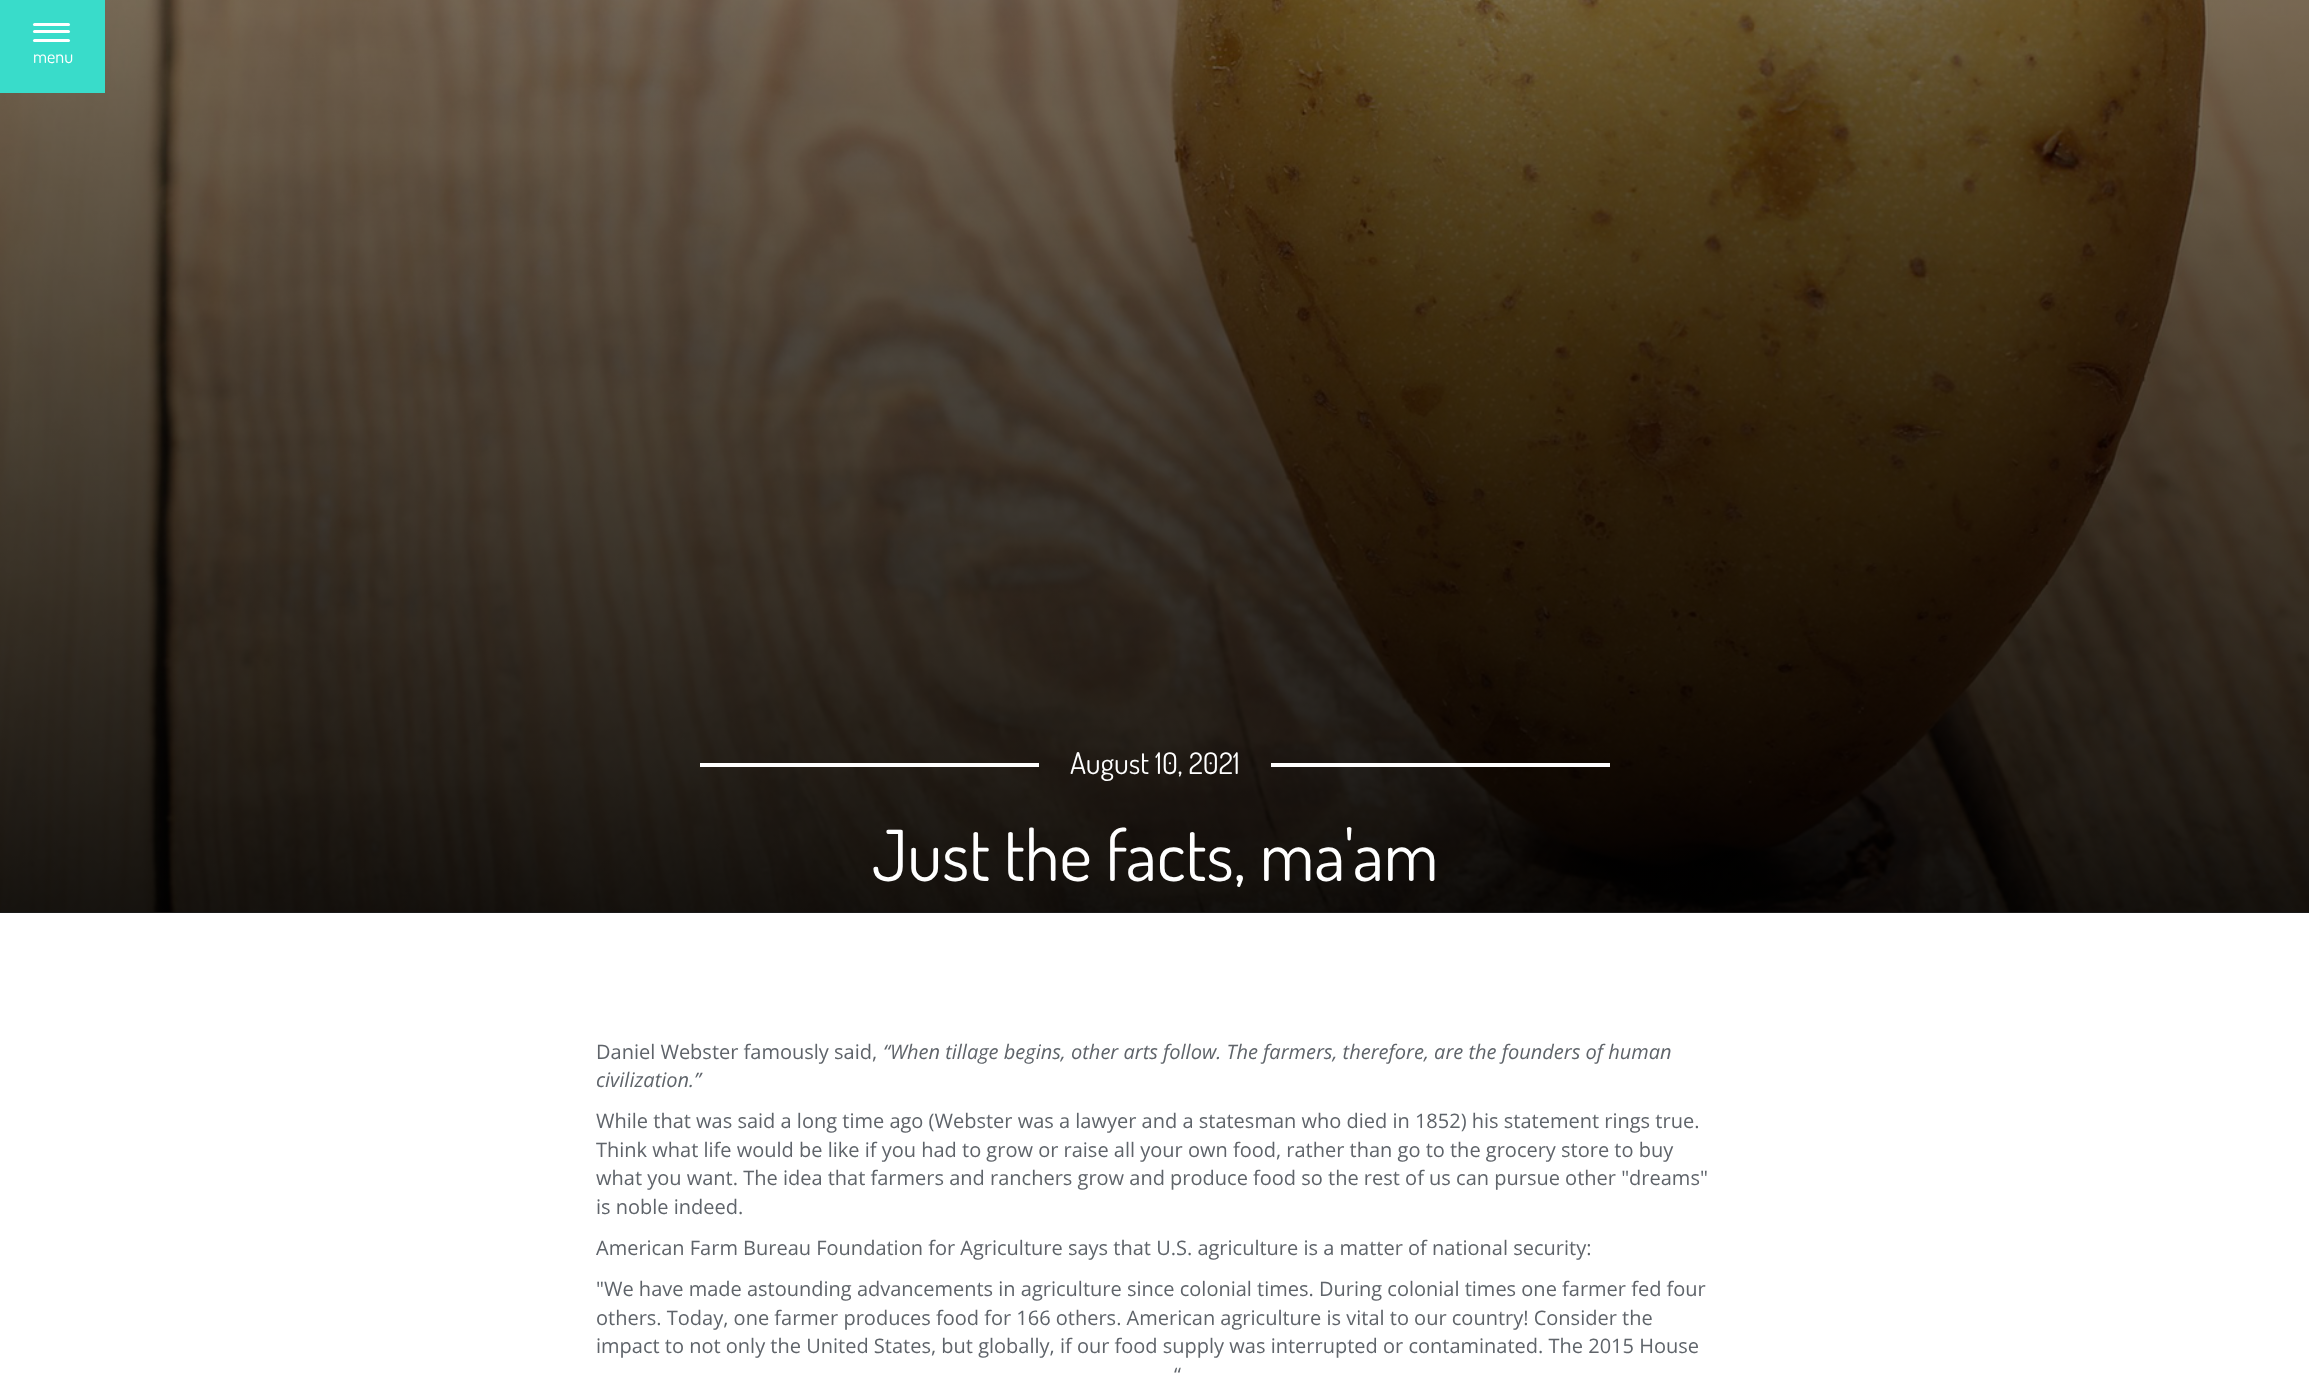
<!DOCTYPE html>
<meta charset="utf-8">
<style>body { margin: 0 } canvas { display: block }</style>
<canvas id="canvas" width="2309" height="1376"></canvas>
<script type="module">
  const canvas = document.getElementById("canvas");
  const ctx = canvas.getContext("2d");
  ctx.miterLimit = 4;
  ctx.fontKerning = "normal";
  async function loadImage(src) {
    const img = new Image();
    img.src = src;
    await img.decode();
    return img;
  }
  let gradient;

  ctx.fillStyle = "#ffffff";
  ctx.fillRect(0, 0, 2309, 1376);
  ctx.drawImage(await loadImage("img1.png"), 0, 0, 2309, 913);
  gradient = ctx.createLinearGradient(1155, 913, 1155, -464);
  gradient.addColorStop(0, "rgba(0, 0, 0, 0.9)");
  gradient.addColorStop(1, "rgba(0, 0, 0, 0.3)");
  ctx.fillStyle = gradient;
  ctx.fillRect(0, 0, 2309, 913);
  ctx.fillStyle = "#39dcca";
  ctx.fillRect(0, 0, 105, 93);
  ctx.fillStyle = "#ffffff";
  ctx.beginPath();
  ctx.roundRect(33, 23, 37, 3, 1.5);
  ctx.fill();
  ctx.beginPath();
  ctx.roundRect(33, 30, 37, 3, 1.5);
  ctx.fill();
  ctx.beginPath();
  ctx.roundRect(33, 39, 37, 3, 1.5);
  ctx.fill();
  ctx.font = "18px Dosis";
  ctx.fillText("menu", 33, 63);
  ctx.fillRect(700, 763, 339, 4);
  ctx.font = "29.75px Dosis";
  ctx.fillText("August 10, 2021", 1070, 774);
  ctx.fillRect(1271, 763, 339, 4);
  ctx.font = "70.25px Dosis";
  ctx.fillText("Just the facts, ma'am", 872, 881);
  ctx.font = "20px Open Sans";
  ctx.fillStyle = "#5f646a";
  ctx.fillText("Daniel Webster famously said,", 596, 1059);
  ctx.font = "italic 20px Open Sans";
  ctx.fillText("“When tillage begins, other arts follow. The farmers, therefore, are the founders of human", 883, 1059);
  ctx.fillText("civilization.”", 596, 1087);
  ctx.font = "20px Open Sans";
  ctx.fillText("While that was said a long time ago (Webster was a lawyer and a statesman who died in 1852) his statement rings true.", 596, 1128);
  ctx.fillText("Think what life would be like if you had to grow or raise all your own food, rather than go to the grocery store to buy", 596, 1157);
  ctx.fillText("what you want. The idea that farmers and ranchers grow and produce food so the rest of us can pursue other \"dreams\"", 596, 1185);
  ctx.fillText("is noble indeed.", 596, 1214);
  ctx.fillText("American Farm Bureau Foundation for Agriculture says that U.S. agriculture is a matter of national security:", 596, 1255);
  ctx.fillText("\"We have made astounding advancements in agriculture since colonial times. During colonial times one farmer fed four", 596, 1296);
  ctx.fillText("others. Today, one farmer produces food for 166 others. American agriculture is vital to our country! Consider the", 596, 1325);
  ctx.fillText("impact to not only the United States, but globally, if our food supply was interrupted or contaminated. The 2015 House", 596, 1353);
  ctx.fillText("“", 1174, 1382);
</script>
